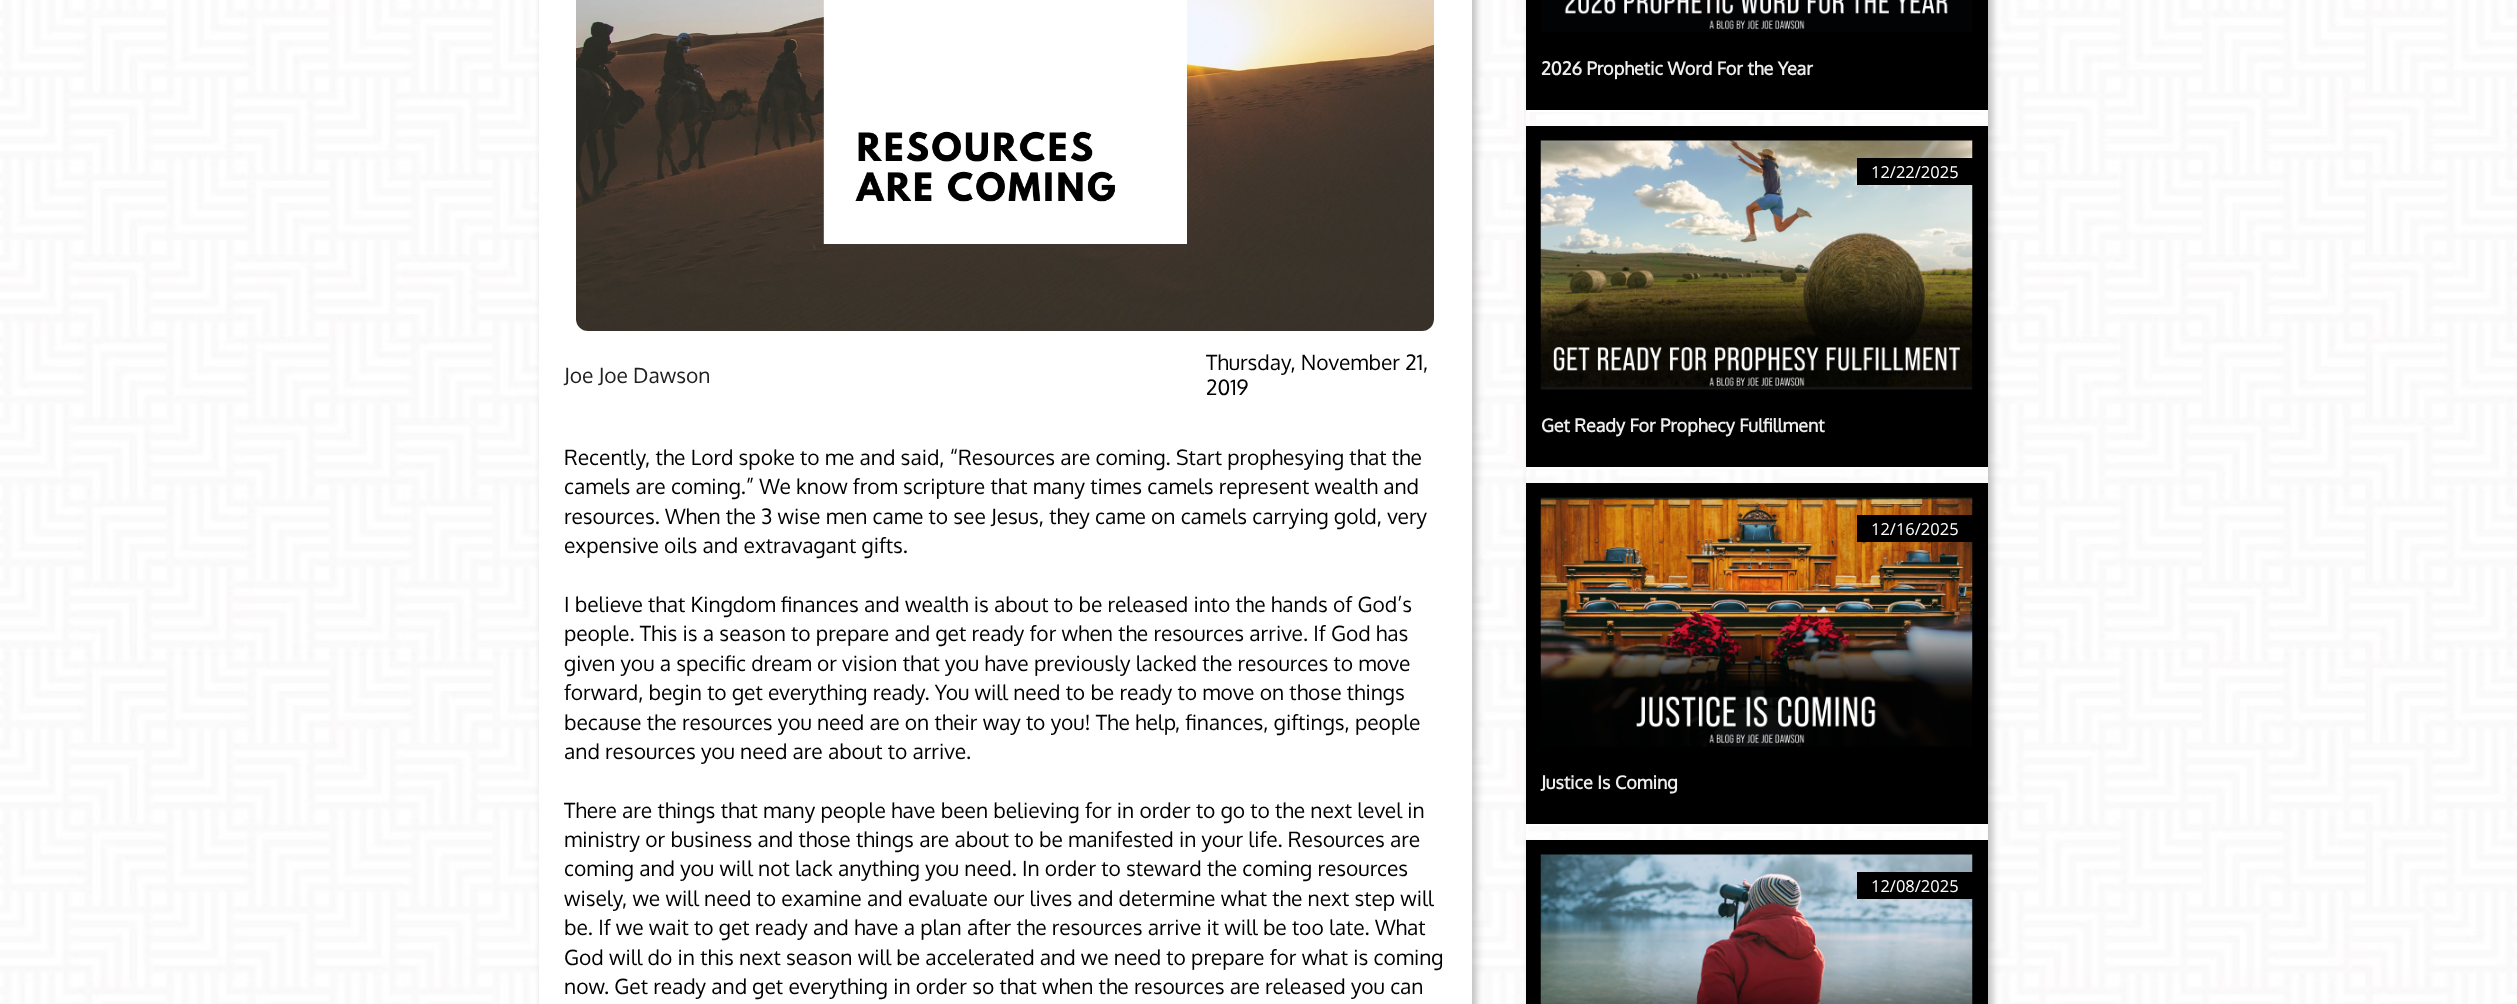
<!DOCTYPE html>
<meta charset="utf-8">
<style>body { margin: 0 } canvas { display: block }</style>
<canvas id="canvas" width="2517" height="1004"></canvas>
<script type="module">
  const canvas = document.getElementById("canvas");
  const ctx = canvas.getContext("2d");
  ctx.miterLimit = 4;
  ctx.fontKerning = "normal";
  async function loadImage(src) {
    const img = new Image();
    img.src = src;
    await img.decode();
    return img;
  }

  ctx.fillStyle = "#ffffff";
  ctx.fillRect(0, 0, 2517, 1004);
  ctx.drawImage(await loadImage("img1.png"), 0, 0, 2517, 1004);
  ctx.fillRect(539, 0, 933, 1004);
  ctx.save();
  ctx.beginPath();
  ctx.moveTo(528, 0);
  ctx.lineTo(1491, 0);
  ctx.lineTo(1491, 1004);
  ctx.lineTo(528, 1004);
  ctx.closePath();
  ctx.moveTo(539, -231);
  ctx.lineTo(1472, -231);
  ctx.lineTo(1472, 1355);
  ctx.lineTo(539, 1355);
  ctx.closePath();
  ctx.clip("evenodd");
  ctx.fillStyle = "rgba(0, 0, 0, 0.25)";
  ctx.filter = "blur(4.5px)";
  ctx.beginPath();
  ctx.rect(543, -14, 933, 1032);
  ctx.fill();
  ctx.filter = "none";
  ctx.restore();
  ctx.drawImage(await loadImage("img2.png"), 576, 0, 858, 331);
  ctx.font = "21px Oxygen";
  ctx.fillStyle = "#212121";
  ctx.fillText("Joe Joe Dawson", 564, 383);
  ctx.fillStyle = "#000000";
  ctx.fillText("Thursday, November 21,", 1206, 370);
  ctx.fillText("2019", 1206, 395);
  ctx.fillText("Recently, the Lord spoke to me and said, “Resources are coming. Start prophesying that the", 564, 465);
  ctx.fillText("camels are coming.” We know from scripture that many times camels represent wealth and", 564, 494);
  ctx.fillText("resources. When the 3 wise men came to see Jesus, they came on camels carrying gold, very", 564, 524);
  ctx.fillText("expensive oils and extravagant gifts.", 564, 553);
  ctx.fillText("I believe that Kingdom finances and wealth is about to be released into the hands of God’s", 564, 612);
  ctx.fillText("people. This is a season to prepare and get ready for when the resources arrive. If God has", 564, 641);
  ctx.fillText("given you a specific dream or vision that you have previously lacked the resources to move", 564, 671);
  ctx.fillText("forward, begin to get everything ready. You will need to be ready to move on those things", 564, 700);
  ctx.fillText("because the resources you need are on their way to you! The help, finances, giftings, people", 564, 730);
  ctx.fillText("and resources you need are about to arrive.", 564, 759);
  ctx.fillText("There are things that many people have been believing for in order to go to the next level in", 564, 818);
  ctx.fillText("ministry or business and those things are about to be manifested in your life. Resources are", 564, 847);
  ctx.fillText("coming and you will not lack anything you need. In order to steward the coming resources", 564, 876);
  ctx.fillText("wisely, we will need to examine and evaluate our lives and determine what the next step will", 564, 906);
  ctx.fillText("be. If we wait to get ready and have a plan after the resources arrive it will be too late. What", 564, 935);
  ctx.fillText("God will do in this next season will be accelerated and we need to prepare for what is coming", 564, 965);
  ctx.fillText("now. Get ready and get everything in order so that when the resources are released you can", 564, 994);
  ctx.save();
  ctx.beginPath();
  ctx.moveTo(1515, 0);
  ctx.lineTo(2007, 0);
  ctx.lineTo(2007, 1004);
  ctx.lineTo(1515, 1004);
  ctx.closePath();
  ctx.moveTo(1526, -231);
  ctx.lineTo(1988, -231);
  ctx.lineTo(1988, 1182);
  ctx.lineTo(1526, 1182);
  ctx.closePath();
  ctx.clip("evenodd");
  ctx.fillStyle = "rgba(0, 0, 0, 0.25)";
  ctx.filter = "blur(4.5px)";
  ctx.beginPath();
  ctx.rect(1530, -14, 462, 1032);
  ctx.fill();
  ctx.filter = "none";
  ctx.restore();
  ctx.fillRect(1526, 0, 462, 110);
  ctx.fillStyle = "#ffffff";
  ctx.fillRect(1526, 110, 462, 2);
  ctx.drawImage(await loadImage("img3.png"), 1541, 0, 431, 32);
  ctx.font = "bold 18px Oxygen";
  ctx.fillStyle = "#eeeeee";
  ctx.fillText("2026 Prophetic Word For the Year", 1541, 75);
  ctx.fillStyle = "#000000";
  ctx.fillRect(1526, 126, 462, 341);
  ctx.fillStyle = "#ffffff";
  ctx.fillRect(1526, 467, 462, 2);
  ctx.drawImage(await loadImage("img4.png"), 1540, 140, 433, 250);
  ctx.fillStyle = "#000000";
  ctx.fillRect(1857, 158, 116, 27);
  ctx.font = "16.5px Open Sans";
  ctx.fillStyle = "#ffffff";
  ctx.fillText("12/22/2025", 1871, 178);
  ctx.font = "bold 18px Oxygen";
  ctx.fillStyle = "#eeeeee";
  ctx.fillText("Get Ready For Prophecy Fulfillment", 1541, 432);
  ctx.fillStyle = "#000000";
  ctx.fillRect(1526, 483, 462, 341);
  ctx.fillStyle = "#ffffff";
  ctx.fillRect(1526, 824, 462, 2);
  ctx.drawImage(await loadImage("img5.png"), 1540, 497, 433, 250);
  ctx.fillStyle = "#000000";
  ctx.fillRect(1857, 515, 116, 27);
  ctx.font = "16.5px Open Sans";
  ctx.fillStyle = "#ffffff";
  ctx.fillText("12/16/2025", 1871, 535);
  ctx.font = "bold 18px Oxygen";
  ctx.fillStyle = "#eeeeee";
  ctx.fillText("Justice Is Coming", 1541, 789);
  ctx.fillStyle = "#000000";
  ctx.fillRect(1526, 840, 462, 164);
  ctx.drawImage(await loadImage("img6.png"), 1540, 854, 433, 150);
  ctx.fillRect(1857, 872, 116, 27);
  ctx.font = "16.5px Open Sans";
  ctx.fillStyle = "#ffffff";
  ctx.fillText("12/08/2025", 1871, 892);
</script>
